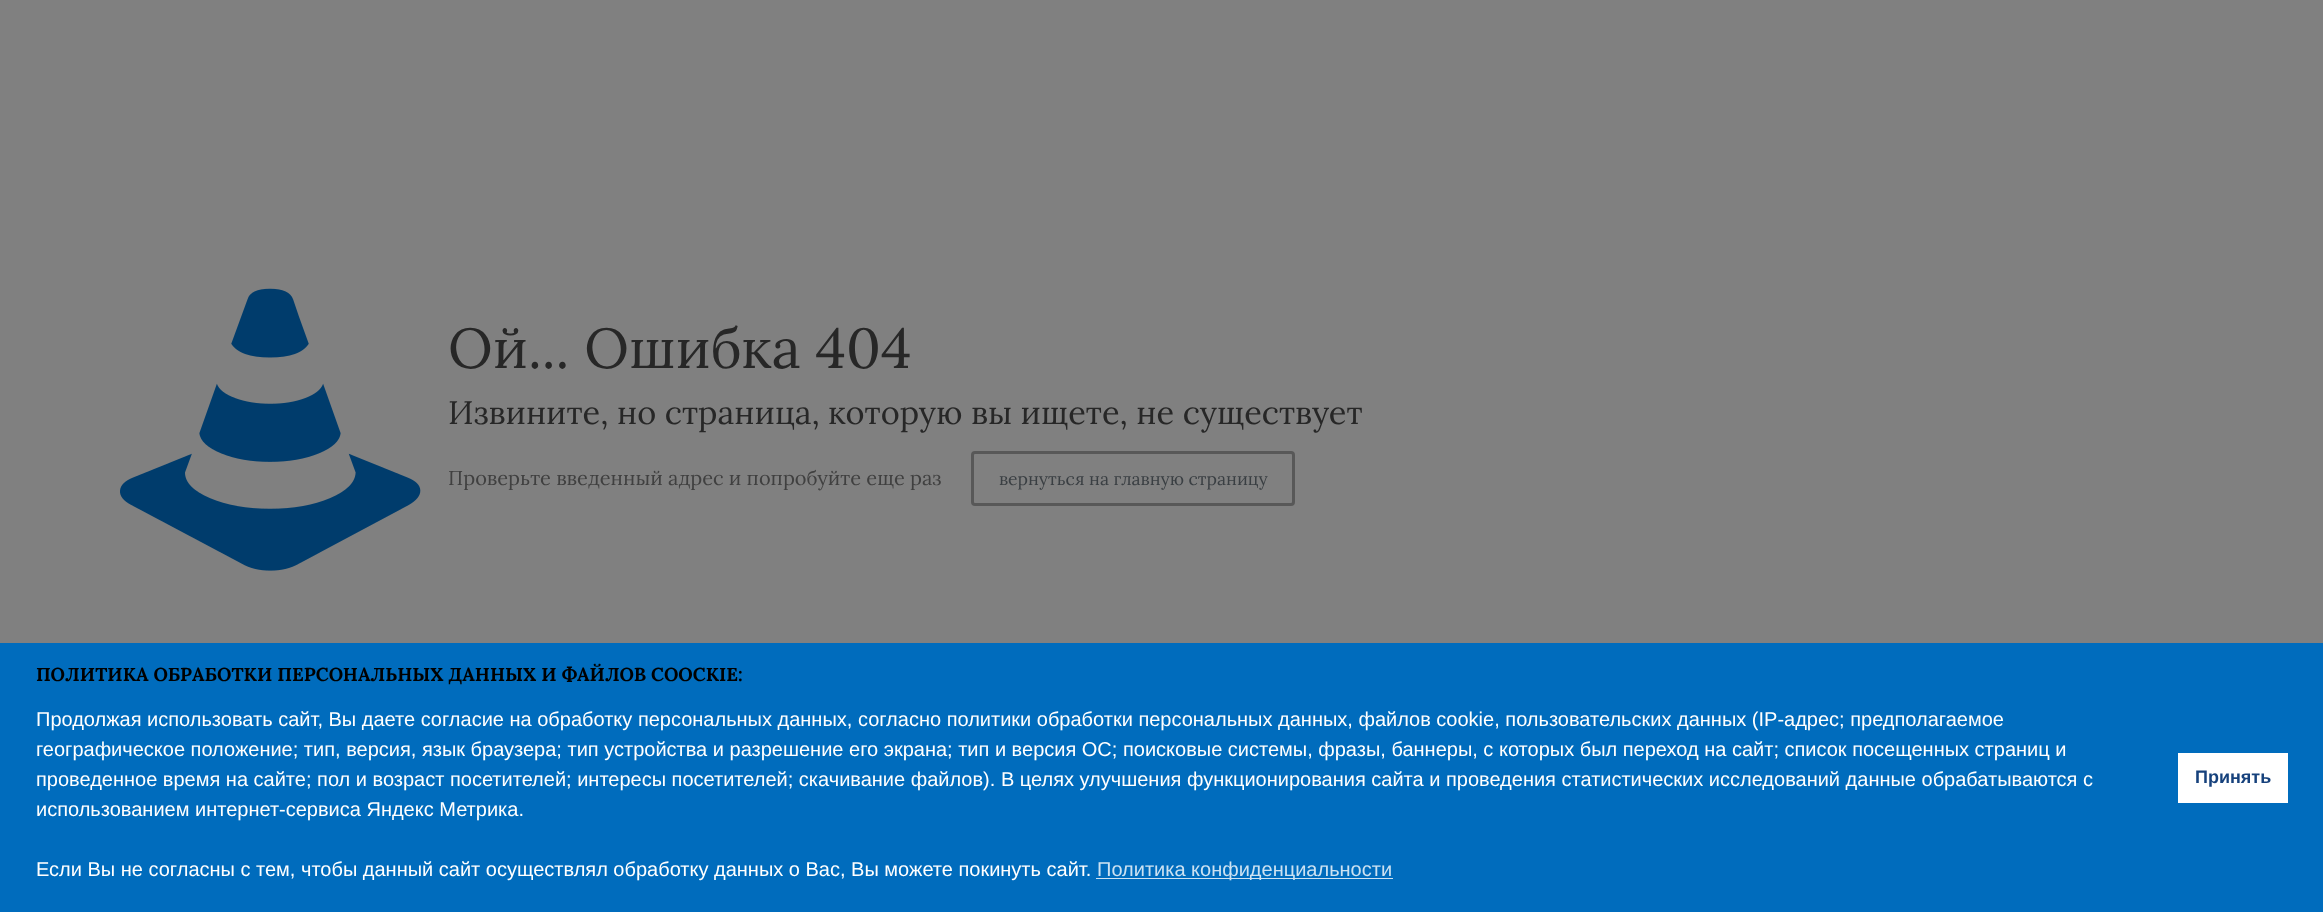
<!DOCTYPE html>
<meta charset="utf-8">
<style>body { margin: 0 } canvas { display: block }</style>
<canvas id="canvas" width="2323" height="912"></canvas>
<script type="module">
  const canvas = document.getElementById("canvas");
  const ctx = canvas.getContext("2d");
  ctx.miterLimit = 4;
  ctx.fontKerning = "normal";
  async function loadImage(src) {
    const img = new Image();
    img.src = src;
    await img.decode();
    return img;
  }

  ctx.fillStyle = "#808080";
  ctx.fillRect(0, 0, 2323, 912);
  ctx.drawImage(await loadImage("img1.png"), 120, 288, 301, 283);
  ctx.font = "56.25px Lora";
  ctx.fillStyle = "#272727";
  ctx.fillText("Ой... Ошибка 404", 448, 368);
  ctx.font = "32.5px Lora";
  ctx.fillText("Извините, но страница, которую вы ищете, не существует", 448, 424);
  ctx.font = "20px Lora";
  ctx.fillStyle = "#404040";
  ctx.fillText("Проверьте введенный адрес и попробуйте еще раз", 448, 485);
  ctx.beginPath();
  ctx.roundRect(972.5, 452.5, 321, 52, 2.5);
  ctx.strokeStyle = "#585858";
  ctx.lineWidth = 3;
  ctx.stroke();
  ctx.font = "17.5px Lora";
  ctx.fillStyle = "#3a3f43";
  ctx.fillText("вернуться на главную страницу", 999, 485);
  ctx.fillStyle = "#006cbd";
  ctx.fillRect(0, 643, 2323, 269);
  ctx.font = "bold 18.75px Lora";
  ctx.fillStyle = "#000000";
  ctx.fillText("ПОЛИТИКА ОБРАБОТКИ ПЕРСОНАЛЬНЫХ ДАННЫХ И ФАЙЛОВ COOCKIE:", 36, 681);
  ctx.font = "20px Liberation Sans";
  ctx.fillStyle = "#ffffff";
  ctx.fillText("Продолжая использовать сайт, Вы даете согласие на обработку персональных данных, согласно политики обработки персональных данных, файлов cookie, пользовательских данных (IP-адрес; предполагаемое", 36, 726);
  ctx.fillText("географическое положение; тип, версия, язык браузера; тип устройства и разрешение его экрана; тип и версия ОС; поисковые системы, фразы, баннеры, с которых был переход на сайт; список посещенных страниц и", 36, 756);
  ctx.fillText("проведенное время на сайте; пол и возраст посетителей; интересы посетителей; скачивание файлов). В целях улучшения функционирования сайта и проведения статистических исследований данные обрабатываются с", 36, 786);
  ctx.fillText("использованием интернет-сервиса Яндекс Метрика.", 36, 816);
  ctx.fillText("Если Вы не согласны с тем, чтобы данный сайт осуществлял обработку данных о Вас, Вы можете покинуть сайт.", 36, 876);
  ctx.fillStyle = "#cce2f2";
  ctx.fillRect(1096, 878, 297, 1);
  ctx.fillText("Политика конфиденциальности", 1097, 876);
  ctx.fillStyle = "#ffffff";
  ctx.fillRect(2178, 753, 110, 50);
  ctx.font = "bold 18px Liberation Sans";
  ctx.fillStyle = "#16417c";
  ctx.fillText("Принять", 2195, 783);
</script>
